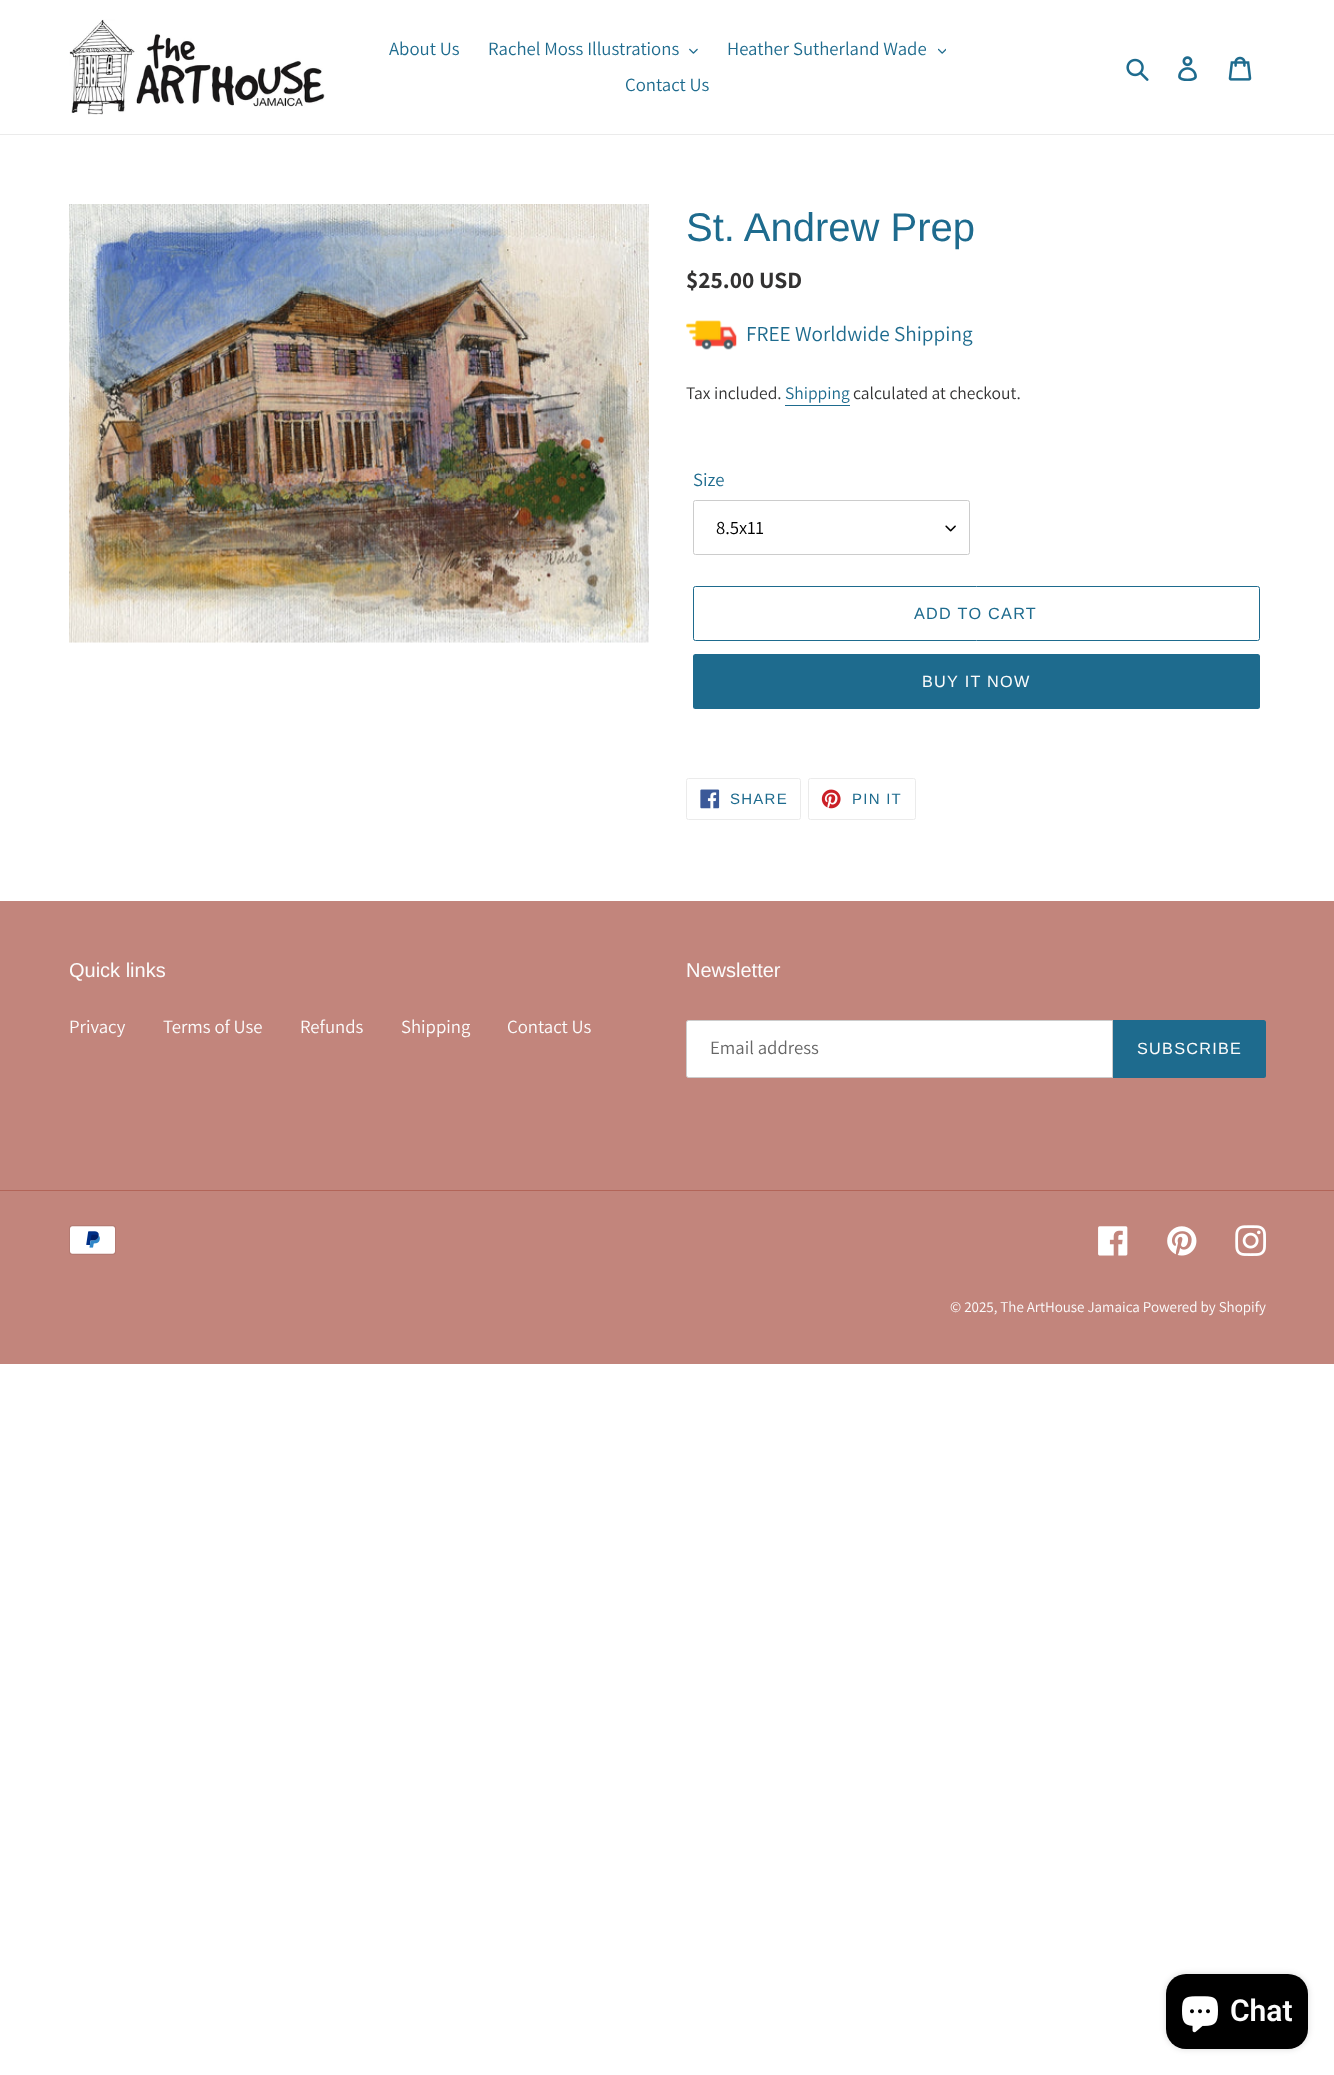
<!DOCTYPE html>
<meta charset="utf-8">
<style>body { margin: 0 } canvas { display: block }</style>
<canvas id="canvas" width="1334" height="2075"></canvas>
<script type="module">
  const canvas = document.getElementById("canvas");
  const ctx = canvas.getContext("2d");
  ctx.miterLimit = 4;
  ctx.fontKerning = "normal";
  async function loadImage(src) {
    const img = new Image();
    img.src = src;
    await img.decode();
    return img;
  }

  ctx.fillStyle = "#ffffff";
  ctx.fillRect(0, 0, 1334, 2075);
  ctx.fillStyle = "#ebebeb";
  ctx.fillRect(0, 134, 1334, 1);
  ctx.drawImage(await loadImage("img1.png"), 69, 19, 256, 96);
  ctx.font = "18.75px Assistant";
  ctx.fillStyle = "#1e6b8e";
  ctx.fillText("About Us", 389, 55);
  ctx.fillText("Rachel Moss Illustrations", 488, 55);
  ctx.drawImage(await loadImage("img2.png"), 689, 48, 9, 6);
  ctx.fillText("Heather Sutherland Wade", 727, 55);
  ctx.drawImage(await loadImage("img3.png"), 938, 48, 8, 6);
  ctx.fillText("Contact Us", 625, 91);
  ctx.drawImage(await loadImage("img4.png"), 1126, 58, 23, 23);
  ctx.drawImage(await loadImage("img5.png"), 1178, 56, 19, 25);
  ctx.drawImage(await loadImage("img6.png"), 1228, 56, 24, 25);
  ctx.drawImage(await loadImage("img7.png"), 69, 204, 580, 439);
  ctx.font = "40px Liberation Sans";
  ctx.fillText("St. Andrew Prep", 686, 241);
  ctx.font = "bold 23.5px Assistant";
  ctx.fillStyle = "#333232";
  ctx.fillText("$25.00 USD", 686, 288);
  ctx.drawImage(await loadImage("img8.png"), 686, 320, 51, 30);
  ctx.font = "21.25px Assistant";
  ctx.fillStyle = "#1e6b8e";
  ctx.fillText("FREE Worldwide Shipping", 746, 341);
  ctx.font = "17.5px Assistant";
  ctx.fillStyle = "#333232";
  ctx.fillText("Tax included.", 686, 399);
  ctx.fillStyle = "#1e6b8e";
  ctx.fillText("Shipping", 785, 399);
  ctx.fillRect(785, 405, 65, 1);
  ctx.fillStyle = "#333232";
  ctx.fillText("calculated at checkout.", 853, 399);
  ctx.font = "18.75px Assistant";
  ctx.fillStyle = "#1e6b8e";
  ctx.fillText("Size", 693, 486);
  ctx.drawImage(await loadImage("img9.png"), 945, 525, 11, 7);
  ctx.beginPath();
  ctx.roundRect(693.5, 500.5, 276, 54, 2);
  ctx.strokeStyle = "#cccccc";
  ctx.stroke();
  ctx.fillStyle = "#000000";
  ctx.fillText("8.5x11", 716, 534);
  ctx.beginPath();
  ctx.roundRect(693.5, 586.5, 566, 54, 2);
  ctx.strokeStyle = "#1e6b8e";
  ctx.stroke();
  ctx.letterSpacing = "1.25px";
  ctx.font = "16.25px Liberation Sans";
  ctx.fillStyle = "#1e6b8e";
  ctx.fillText("ADD TO CART", 914, 619);
  ctx.beginPath();
  ctx.roundRect(693, 654, 567, 55, 2.5);
  ctx.fill();
  ctx.fillStyle = "#fcfcfc";
  ctx.fillText("BUY IT NOW", 922, 687);
  ctx.beginPath();
  ctx.roundRect(686.5, 778.5, 114, 41, 2);
  ctx.strokeStyle = "#ebebeb";
  ctx.stroke();
  ctx.drawImage(await loadImage("img10.png"), 700, 789, 20, 20);
  ctx.font = "15px Liberation Sans";
  ctx.fillStyle = "#1e6b8e";
  ctx.fillText("SHARE", 730, 804);
  ctx.beginPath();
  ctx.roundRect(808.5, 778.5, 107, 41, 2);
  ctx.stroke();
  ctx.drawImage(await loadImage("img11.png"), 821, 789, 20, 20);
  ctx.fillText("PIN IT", 852, 804);
  ctx.fillStyle = "#c2857c";
  ctx.fillRect(0, 901, 1334, 463);
  ctx.letterSpacing = "0px";
  ctx.font = "20px Liberation Sans";
  ctx.fillStyle = "#fcfcfc";
  ctx.fillText("Quick links", 69, 977);
  ctx.font = "18.75px Assistant";
  ctx.fillText("Privacy", 69, 1033);
  ctx.fillText("Terms of Use", 163, 1033);
  ctx.fillText("Refunds", 300, 1033);
  ctx.fillText("Shipping", 401, 1033);
  ctx.fillText("Contact Us", 507, 1033);
  ctx.font = "20px Liberation Sans";
  ctx.fillText("Newsletter", 686, 977);
  ctx.fillStyle = "#ffffff";
  ctx.beginPath();
  ctx.roundRect(686.5, 1020.5, 426, 57, [2, 0, 0, 2]);
  ctx.fill();
  ctx.strokeStyle = "#cccccc";
  ctx.stroke();
  ctx.font = "18.75px Assistant";
  ctx.fillStyle = "#666666";
  ctx.fillText("Email address", 710, 1054);
  ctx.fillStyle = "#1e6b8e";
  ctx.beginPath();
  ctx.roundRect(1113, 1020, 153, 58, [0, 2.5, 2.5, 0]);
  ctx.fill();
  ctx.letterSpacing = "1.25px";
  ctx.font = "16.25px Liberation Sans";
  ctx.fillStyle = "#fcfcfc";
  ctx.fillText("SUBSCRIBE", 1137, 1054);
  ctx.fillStyle = "#b26559";
  ctx.fillRect(0, 1190, 1334, 1);
  ctx.drawImage(await loadImage("img12.png"), 69, 1225, 47, 30);
  ctx.drawImage(await loadImage("img13.png"), 1098, 1226, 30, 30);
  ctx.drawImage(await loadImage("img14.png"), 1167, 1226, 30, 30);
  ctx.drawImage(await loadImage("img15.png"), 1235, 1225, 31, 31);
  ctx.letterSpacing = "0px";
  ctx.font = "15px Assistant";
  ctx.fillStyle = "#fcfcfc";
  ctx.fillText("© 2025, The ArtHouse Jamaica Powered by Shopify", 950, 1312);
  ctx.fillStyle = "rgba(0, 0, 0, 0.15)";
  ctx.filter = "blur(3px)";
  ctx.beginPath();
  ctx.roundRect(1166, 1974, 142, 75, 20);
  ctx.fill();
  ctx.filter = "none";
  ctx.fillStyle = "#000000";
  ctx.beginPath();
  ctx.roundRect(1166, 1974, 142, 75, 20);
  ctx.fill();
  ctx.drawImage(await loadImage("img16.png"), 1182, 1996, 36, 37);
  ctx.font = "600 30px Roboto";
  ctx.fillStyle = "#fcfcfc";
  ctx.fillText("Chat", 1230, 2021);
</script>
